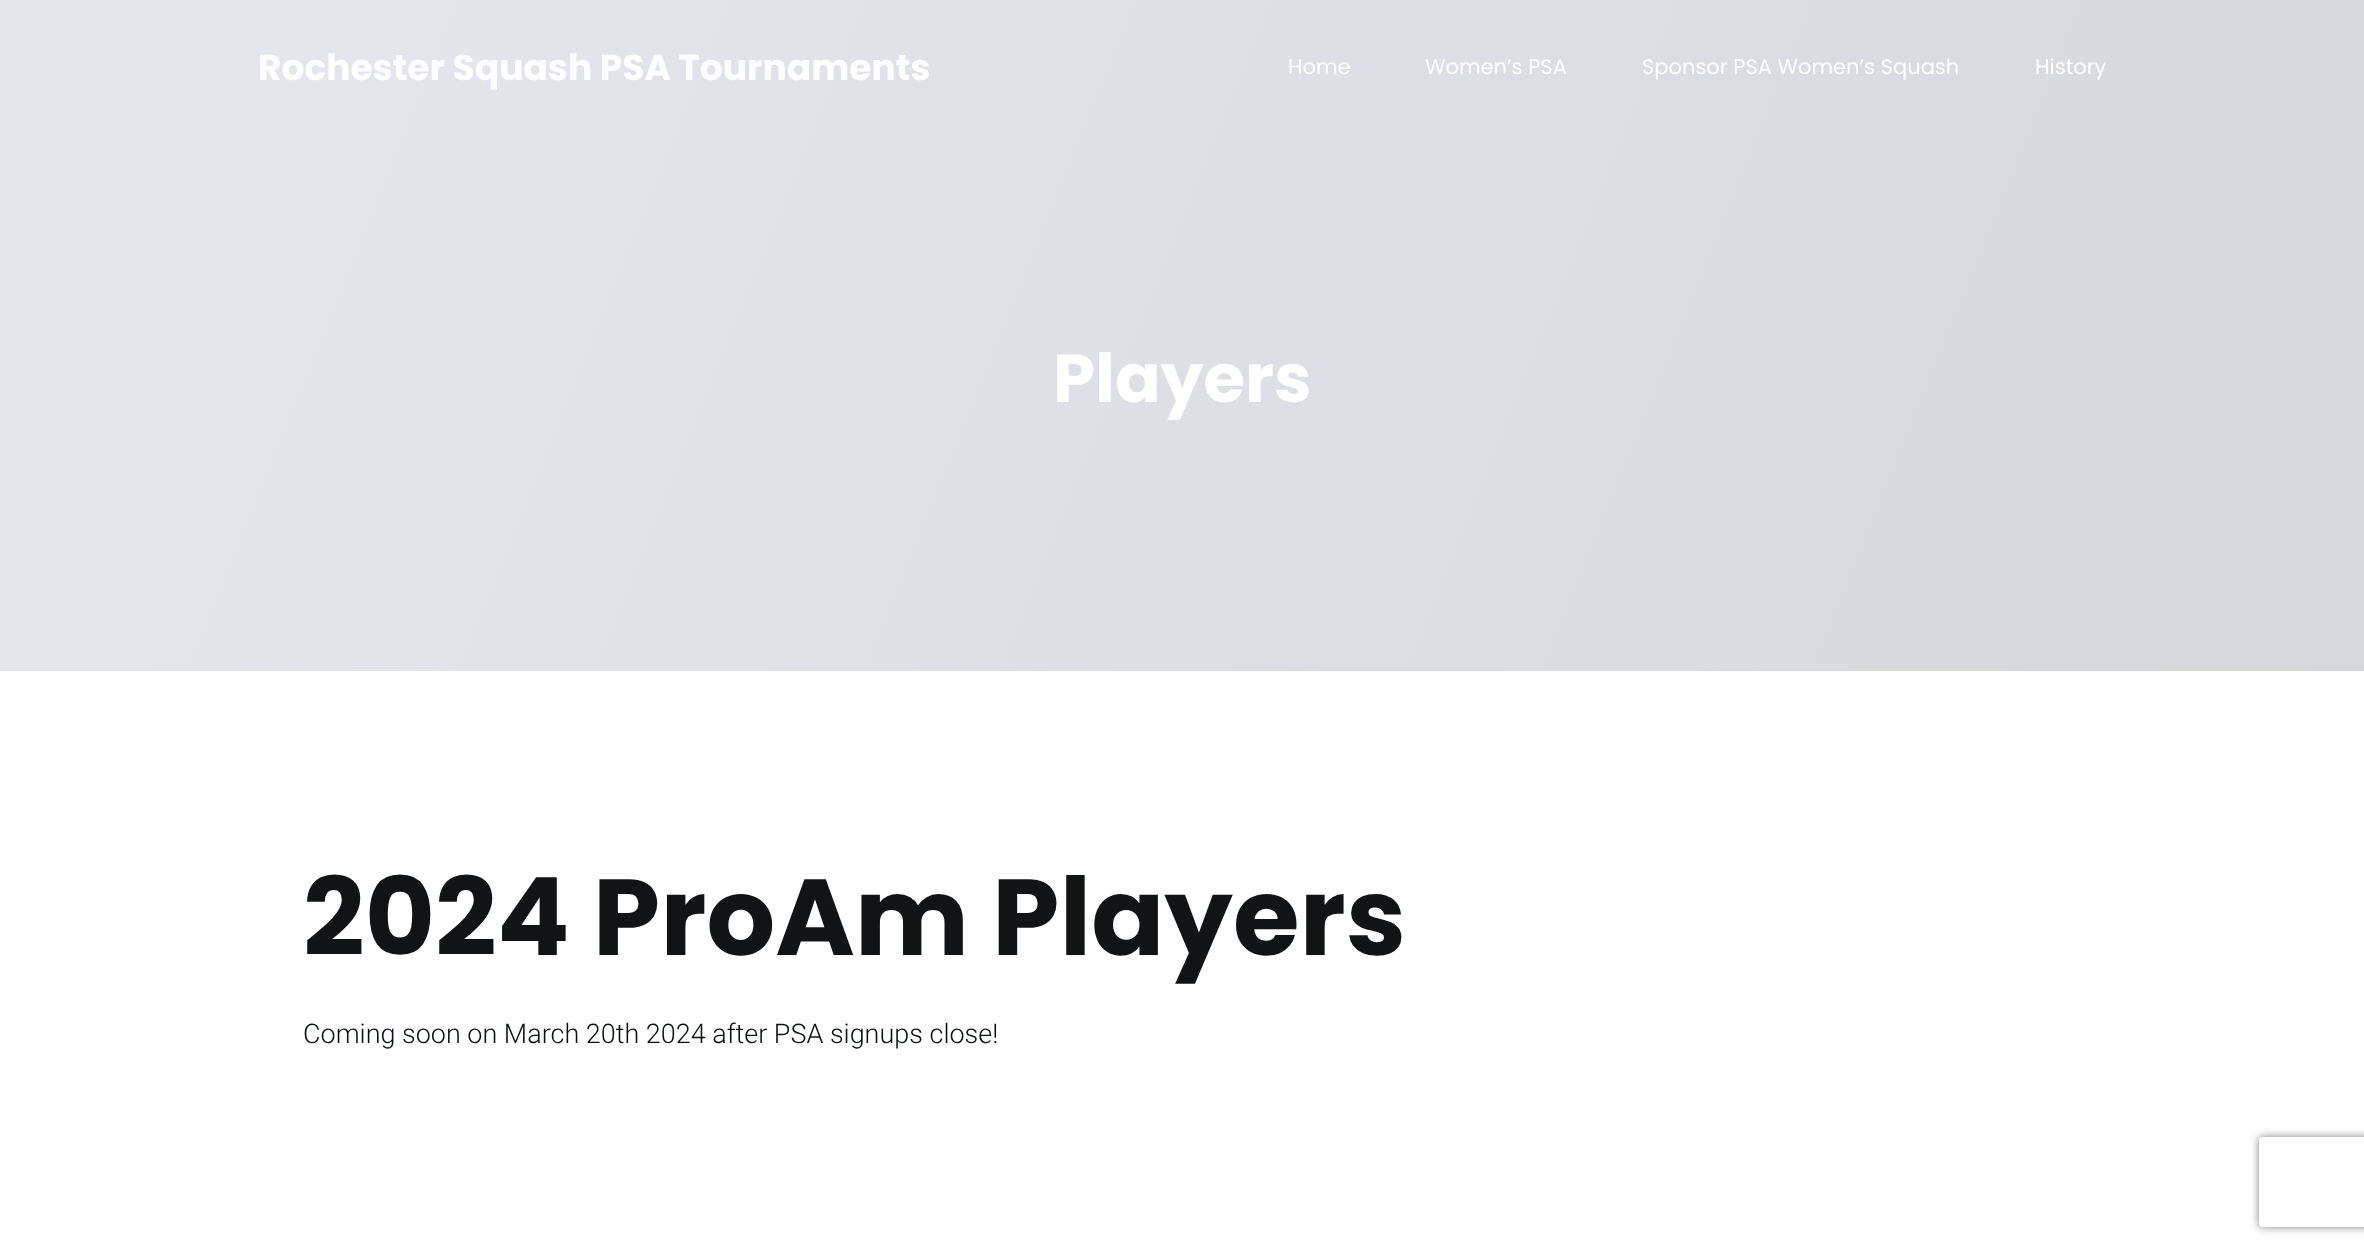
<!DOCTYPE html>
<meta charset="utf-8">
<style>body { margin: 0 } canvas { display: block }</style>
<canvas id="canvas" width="2364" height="1248"></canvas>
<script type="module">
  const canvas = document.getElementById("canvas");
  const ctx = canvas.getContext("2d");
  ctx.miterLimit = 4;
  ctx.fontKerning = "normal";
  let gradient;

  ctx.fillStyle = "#ffffff";
  ctx.fillRect(0, 0, 2364, 1248);
  gradient = ctx.createLinearGradient(49, -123, 2315, 793);
  gradient.addColorStop(0.12, "#e5e5ed");
  gradient.addColorStop(1, "#d6d6dd");
  ctx.fillStyle = gradient;
  ctx.fillRect(0, 0, 2364, 671);
  ctx.font = "bold 36px Poppins";
  ctx.fillStyle = "#ffffff";
  ctx.fillText("Rochester Squash PSA Tournaments", 258, 80);
  ctx.font = "21px Poppins";
  ctx.fillText("Home", 1288, 74);
  ctx.fillText("Women’s PSA", 1425, 74);
  ctx.fillText("Sponsor PSA Women’s Squash", 1642, 74);
  ctx.fillText("History", 2035, 74);
  ctx.font = "bold 67.5px Poppins";
  ctx.fillText("Players", 1053, 402);
  ctx.font = "bold 108px Poppins";
  ctx.fillStyle = "#121315";
  ctx.fillText("2024 ProAm Players", 303, 955);
  ctx.font = "300 27px Roboto";
  ctx.fillStyle = "#0a0e14";
  ctx.fillText("Coming soon on March 20th 2024 after PSA signups close!", 303, 1043);
  ctx.save();
  ctx.beginPath();
  ctx.moveTo(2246, 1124);
  ctx.lineTo(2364, 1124);
  ctx.lineTo(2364, 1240);
  ctx.lineTo(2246, 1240);
  ctx.closePath();
  ctx.moveTo(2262, 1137);
  ctx.lineTo(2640, 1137);
  ctx.bezierCurveTo(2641.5, 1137, 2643, 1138.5, 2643, 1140);
  ctx.lineTo(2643, 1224);
  ctx.bezierCurveTo(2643, 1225.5, 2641.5, 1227, 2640, 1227);
  ctx.lineTo(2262, 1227);
  ctx.bezierCurveTo(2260.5, 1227, 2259, 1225.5, 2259, 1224);
  ctx.lineTo(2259, 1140);
  ctx.bezierCurveTo(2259, 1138.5, 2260.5, 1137, 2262, 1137);
  ctx.closePath();
  ctx.clip("evenodd");
  ctx.fillStyle = "#808080";
  ctx.filter = "blur(4px)";
  ctx.beginPath();
  ctx.roundRect(2259, 1137, 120, 90, 3);
  ctx.fill();
  ctx.filter = "none";
  ctx.restore();
</script>
